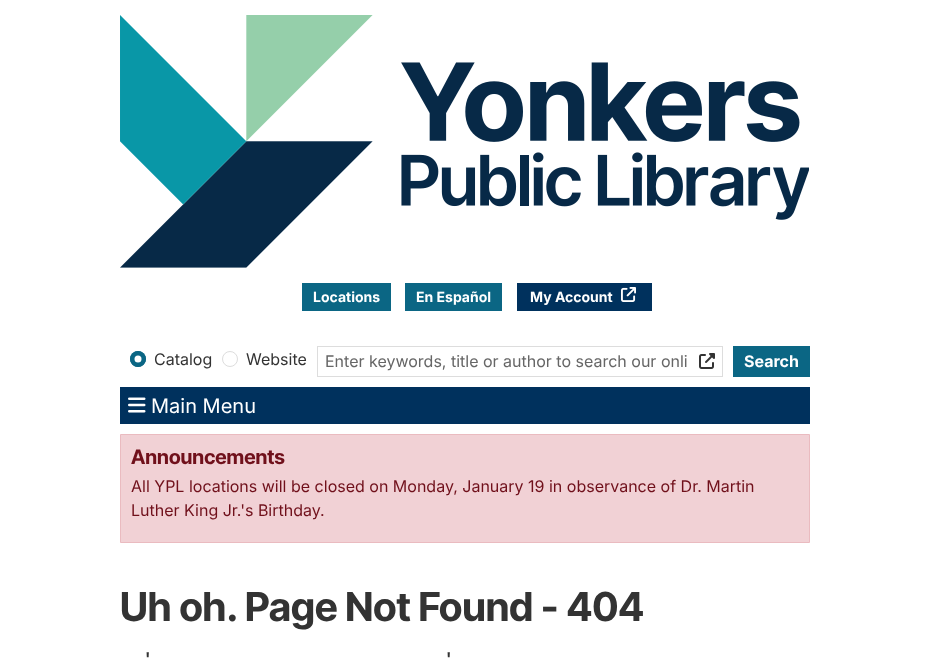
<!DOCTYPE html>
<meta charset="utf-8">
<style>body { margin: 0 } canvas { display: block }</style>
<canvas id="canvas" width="929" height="658"></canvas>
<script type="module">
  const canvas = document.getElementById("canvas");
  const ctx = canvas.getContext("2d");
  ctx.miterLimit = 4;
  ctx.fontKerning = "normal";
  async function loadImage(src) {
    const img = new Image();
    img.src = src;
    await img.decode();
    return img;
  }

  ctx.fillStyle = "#ffffff";
  ctx.fillRect(0, 0, 929, 658);
  ctx.drawImage(await loadImage("img1.png"), 120, 15, 689, 253);
  ctx.fillStyle = "#0b6684";
  ctx.fillRect(302, 283, 89, 28);
  ctx.font = "bold 14px Inter";
  ctx.fillStyle = "#ffffff";
  ctx.fillText("Locations", 313, 302);
  ctx.fillStyle = "#0b6684";
  ctx.fillRect(405, 283, 97, 28);
  ctx.fillStyle = "#ffffff";
  ctx.fillText("En Español", 416, 302);
  ctx.fillStyle = "#00315d";
  ctx.fillRect(517, 283, 135, 28);
  ctx.fillStyle = "#ffffff";
  ctx.fillText("My Account", 530, 302);
  ctx.drawImage(await loadImage("img2.png"), 621, 287, 15, 15);
  ctx.fillStyle = "#0b6684";
  ctx.beginPath();
  ctx.arc(138, 359, 8, 0, Math.PI * 2);
  ctx.fill();
  ctx.fillStyle = "#ffffff";
  ctx.beginPath();
  ctx.arc(138, 359, 3.5, 0, Math.PI * 2);
  ctx.fill();
  ctx.beginPath();
  ctx.arc(138, 359, 7.5, 0, Math.PI * 2);
  ctx.strokeStyle = "#0b6684";
  ctx.stroke();
  ctx.font = "16px Inter";
  ctx.fillStyle = "#333333";
  ctx.fillText("Catalog", 154, 365);
  ctx.beginPath();
  ctx.arc(230, 359, 7.5, 0, Math.PI * 2);
  ctx.strokeStyle = "#dddddd";
  ctx.stroke();
  ctx.fillText("Website", 246, 365);
  ctx.strokeRect(317.5, 346.5, 405, 30);
  ctx.fillStyle = "#666666";
  ctx.fillText("Enter keywords, title or author to search our onli", 325, 367);
  ctx.drawImage(await loadImage("img3.png"), 699, 353, 16, 16);
  ctx.fillStyle = "#0b6684";
  ctx.fillRect(733, 346, 77, 31);
  ctx.font = "bold 16px Inter";
  ctx.fillStyle = "#ffffff";
  ctx.fillText("Search", 744, 367);
  ctx.fillStyle = "#00315d";
  ctx.fillRect(120, 387, 690, 37);
  ctx.drawImage(await loadImage("img4.png"), 128, 397, 18, 16);
  ctx.font = "20px Inter";
  ctx.fillStyle = "#ffffff";
  ctx.fillText("Main Menu", 151, 413);
  ctx.fillStyle = "#f1d1d5";
  ctx.beginPath();
  ctx.rect(120.5, 434.5, 689, 108);
  ctx.fill();
  ctx.strokeStyle = "#eabbc0";
  ctx.stroke();
  ctx.font = "bold 20px Inter Tight";
  ctx.fillStyle = "#70101b";
  ctx.fillText("Announcements", 131, 464);
  ctx.font = "16px Inter";
  ctx.fillText("All YPL locations will be closed on Monday, January 19 in observance of Dr. Martin", 131, 492);
  ctx.fillText("Luther King Jr.'s Birthday.", 131, 516);
  ctx.font = "bold 39.9px Inter Tight";
  ctx.fillStyle = "#333333";
  ctx.fillText("Uh oh. Page Not Found - 404", 120, 621);
  ctx.font = "bold 16px Inter";
  ctx.fillText("'", 145, 664);
  ctx.fillText("'", 446, 664);
</script>
